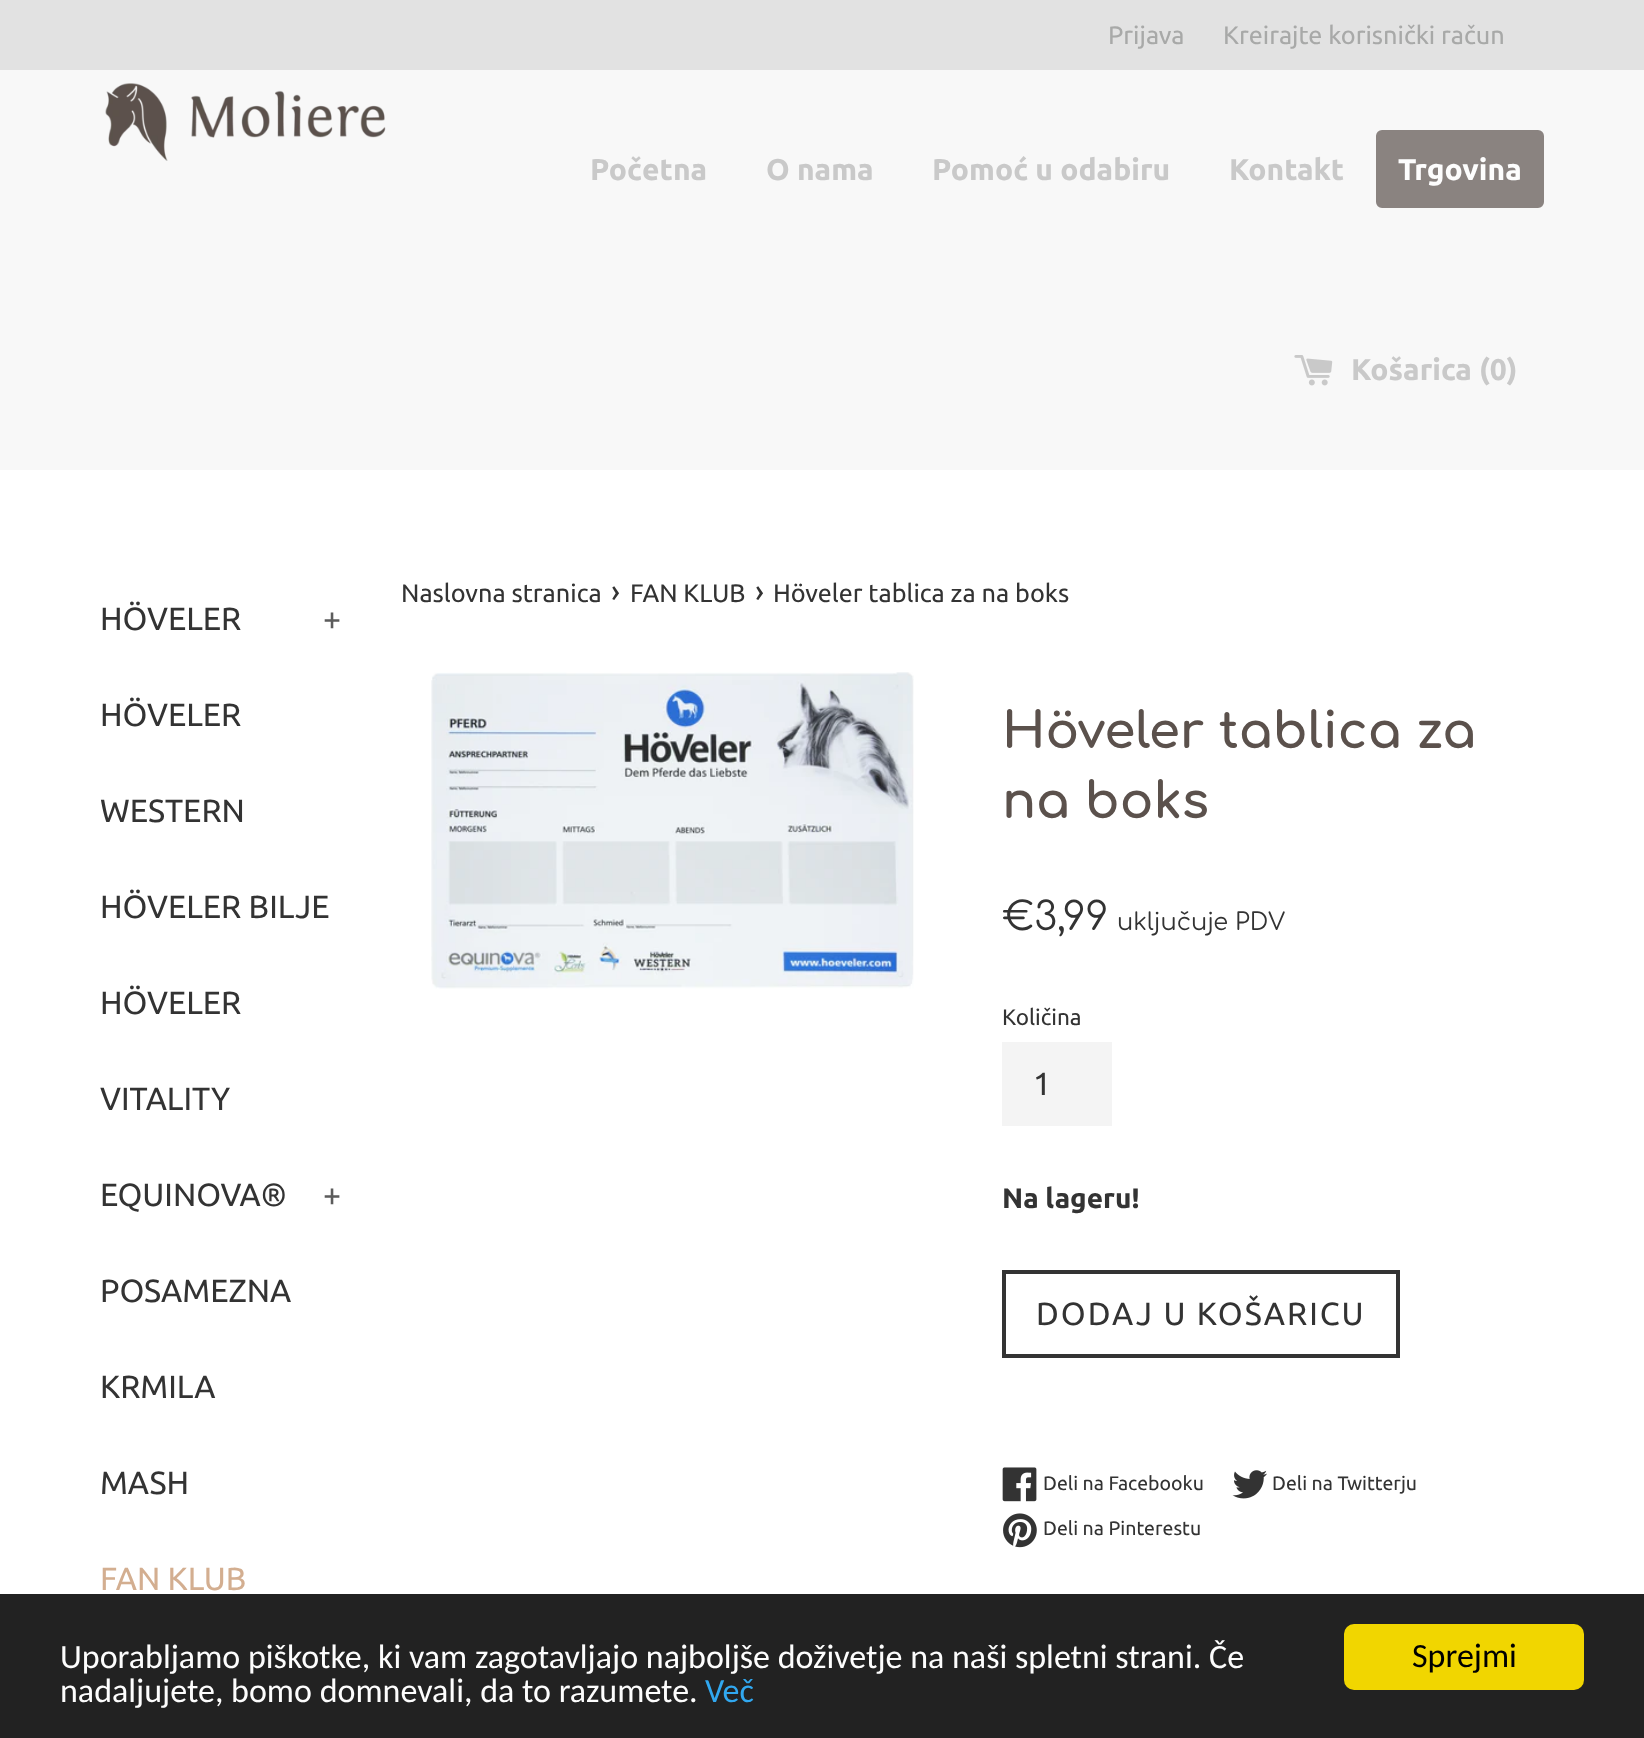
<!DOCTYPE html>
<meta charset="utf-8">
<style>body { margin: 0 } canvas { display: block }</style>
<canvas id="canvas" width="1644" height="1738"></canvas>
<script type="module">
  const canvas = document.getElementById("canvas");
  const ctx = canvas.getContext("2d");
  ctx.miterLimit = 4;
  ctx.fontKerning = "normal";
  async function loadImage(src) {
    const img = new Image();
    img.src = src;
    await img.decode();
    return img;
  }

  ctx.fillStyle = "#ffffff";
  ctx.fillRect(0, 0, 1644, 1738);
  ctx.fillStyle = "#f8f8f8";
  ctx.fillRect(0, 70, 1644, 400);
  ctx.fillStyle = "#e2e2e2";
  ctx.fillRect(0, 0, 1644, 70);
  ctx.font = "25.25px Ubuntu";
  ctx.fillStyle = "#a8a9a8";
  ctx.fillText("Prijava", 1108, 44);
  ctx.fillText("Kreirajte korisnički račun", 1223, 44);
  ctx.drawImage(await loadImage("img1.png"), 105, 83, 281, 78);
  ctx.font = "bold 30px Ubuntu";
  ctx.fillStyle = "#c9c9c9";
  ctx.fillText("Početna", 590, 180);
  ctx.fillText("O nama", 766, 180);
  ctx.fillText("Pomoć u odabiru", 932, 180);
  ctx.fillText("Kontakt", 1229, 180);
  ctx.fillStyle = "#8a8380";
  ctx.beginPath();
  ctx.roundRect(1378, 132, 164, 74, 4);
  ctx.fill();
  ctx.strokeStyle = "#8a8380";
  ctx.lineWidth = 4;
  ctx.stroke();
  ctx.fillStyle = "#fdfdfd";
  ctx.fillText("Trgovina", 1398, 180);
  ctx.drawImage(await loadImage("img2.png"), 1294, 355, 39, 31);
  ctx.fillStyle = "#c9c9c9";
  ctx.fillText("Košarica (0)", 1351, 380);
  ctx.font = "32px Ubuntu";
  ctx.fillStyle = "#333333";
  ctx.fillText("HÖVELER", 100, 630);
  ctx.fillStyle = "#5c5c5c";
  ctx.fillText("+", 323, 630);
  ctx.fillStyle = "#333333";
  ctx.fillText("HÖVELER", 100, 726);
  ctx.fillText("WESTERN", 100, 822);
  ctx.fillText("HÖVELER BILJE", 100, 918);
  ctx.fillText("HÖVELER", 100, 1014);
  ctx.fillText("VITALITY", 100, 1110);
  ctx.fillText("EQUINOVA®", 100, 1206);
  ctx.fillStyle = "#5c5c5c";
  ctx.fillText("+", 323, 1206);
  ctx.fillStyle = "#333333";
  ctx.fillText("POSAMEZNA", 100, 1302);
  ctx.fillText("KRMILA", 100, 1398);
  ctx.fillText("MASH", 100, 1494);
  ctx.fillStyle = "#d3ae90";
  ctx.fillText("FAN KLUB", 100, 1590);
  ctx.font = "25.25px Ubuntu";
  ctx.fillStyle = "#333333";
  ctx.fillText("Naslovna stranica", 401, 602);
  ctx.font = "31px Ubuntu";
  ctx.fillText("›", 611, 602);
  ctx.font = "25.25px Ubuntu";
  ctx.fillText("FAN KLUB", 630, 602);
  ctx.font = "31px Ubuntu";
  ctx.fillText("›", 755, 602);
  ctx.font = "25.25px Ubuntu";
  ctx.fillText("Höveler tablica za na boks", 773, 602);
  ctx.drawImage(await loadImage("img3.png"), 431, 672, 483, 317);
  ctx.font = "bold 50px Comfortaa";
  ctx.fillStyle = "#5b514c";
  ctx.fillText("Höveler tablica za", 1002, 748);
  ctx.fillText("na boks", 1002, 818);
  ctx.font = "39px Comfortaa";
  ctx.fillStyle = "#333333";
  ctx.fillText("€3,99", 1002, 930);
  ctx.font = "24px Comfortaa";
  ctx.fillText("uključuje PDV", 1117, 930);
  ctx.font = "22.5px Ubuntu";
  ctx.fillText("Količina", 1002, 1025);
  ctx.fillStyle = "#f4f4f4";
  ctx.fillRect(1002, 1042, 110, 84);
  ctx.font = "32px Ubuntu";
  ctx.fillStyle = "#333333";
  ctx.fillText("1", 1033, 1095);
  ctx.font = "bold 28px Ubuntu";
  ctx.fillText("Na lageru!", 1002, 1208);
  ctx.strokeStyle = "#333333";
  ctx.strokeRect(1004, 1272, 394, 84);
  ctx.letterSpacing = "2px";
  ctx.font = "32px Ubuntu";
  ctx.fillText("DODAJ U KOŠARICU", 1036, 1325);
  ctx.drawImage(await loadImage("img4.png"), 1002, 1467, 35, 35);
  ctx.letterSpacing = "0px";
  ctx.font = "19.5px Ubuntu";
  ctx.fillText("Deli na Facebooku", 1043, 1490);
  ctx.drawImage(await loadImage("img5.png"), 1232, 1470, 35, 29);
  ctx.fillText("Deli na Twitterju", 1272, 1490);
  ctx.drawImage(await loadImage("img6.png"), 1003, 1513, 34, 35);
  ctx.fillText("Deli na Pinterestu", 1043, 1535);
  ctx.fillStyle = "#222222";
  ctx.fillRect(0, 1594, 1644, 144);
  ctx.font = "34px Carlito";
  ctx.fillStyle = "#fdfdfd";
  ctx.fillText("Uporabljamo piškotke, ki vam zagotavljajo najboljše doživetje na naši spletni strani. Če", 60, 1668);
  ctx.fillText("nadaljujete, bomo domnevali, da to razumete.", 60, 1702);
  ctx.fillStyle = "#31a8f0";
  ctx.fillText("Več", 705, 1702);
  ctx.fillStyle = "#f1d600";
  ctx.beginPath();
  ctx.roundRect(1344, 1624, 240, 66, 10);
  ctx.fill();
  ctx.fillStyle = "#000000";
  ctx.fillText("Sprejmi", 1412, 1667);
</script>
